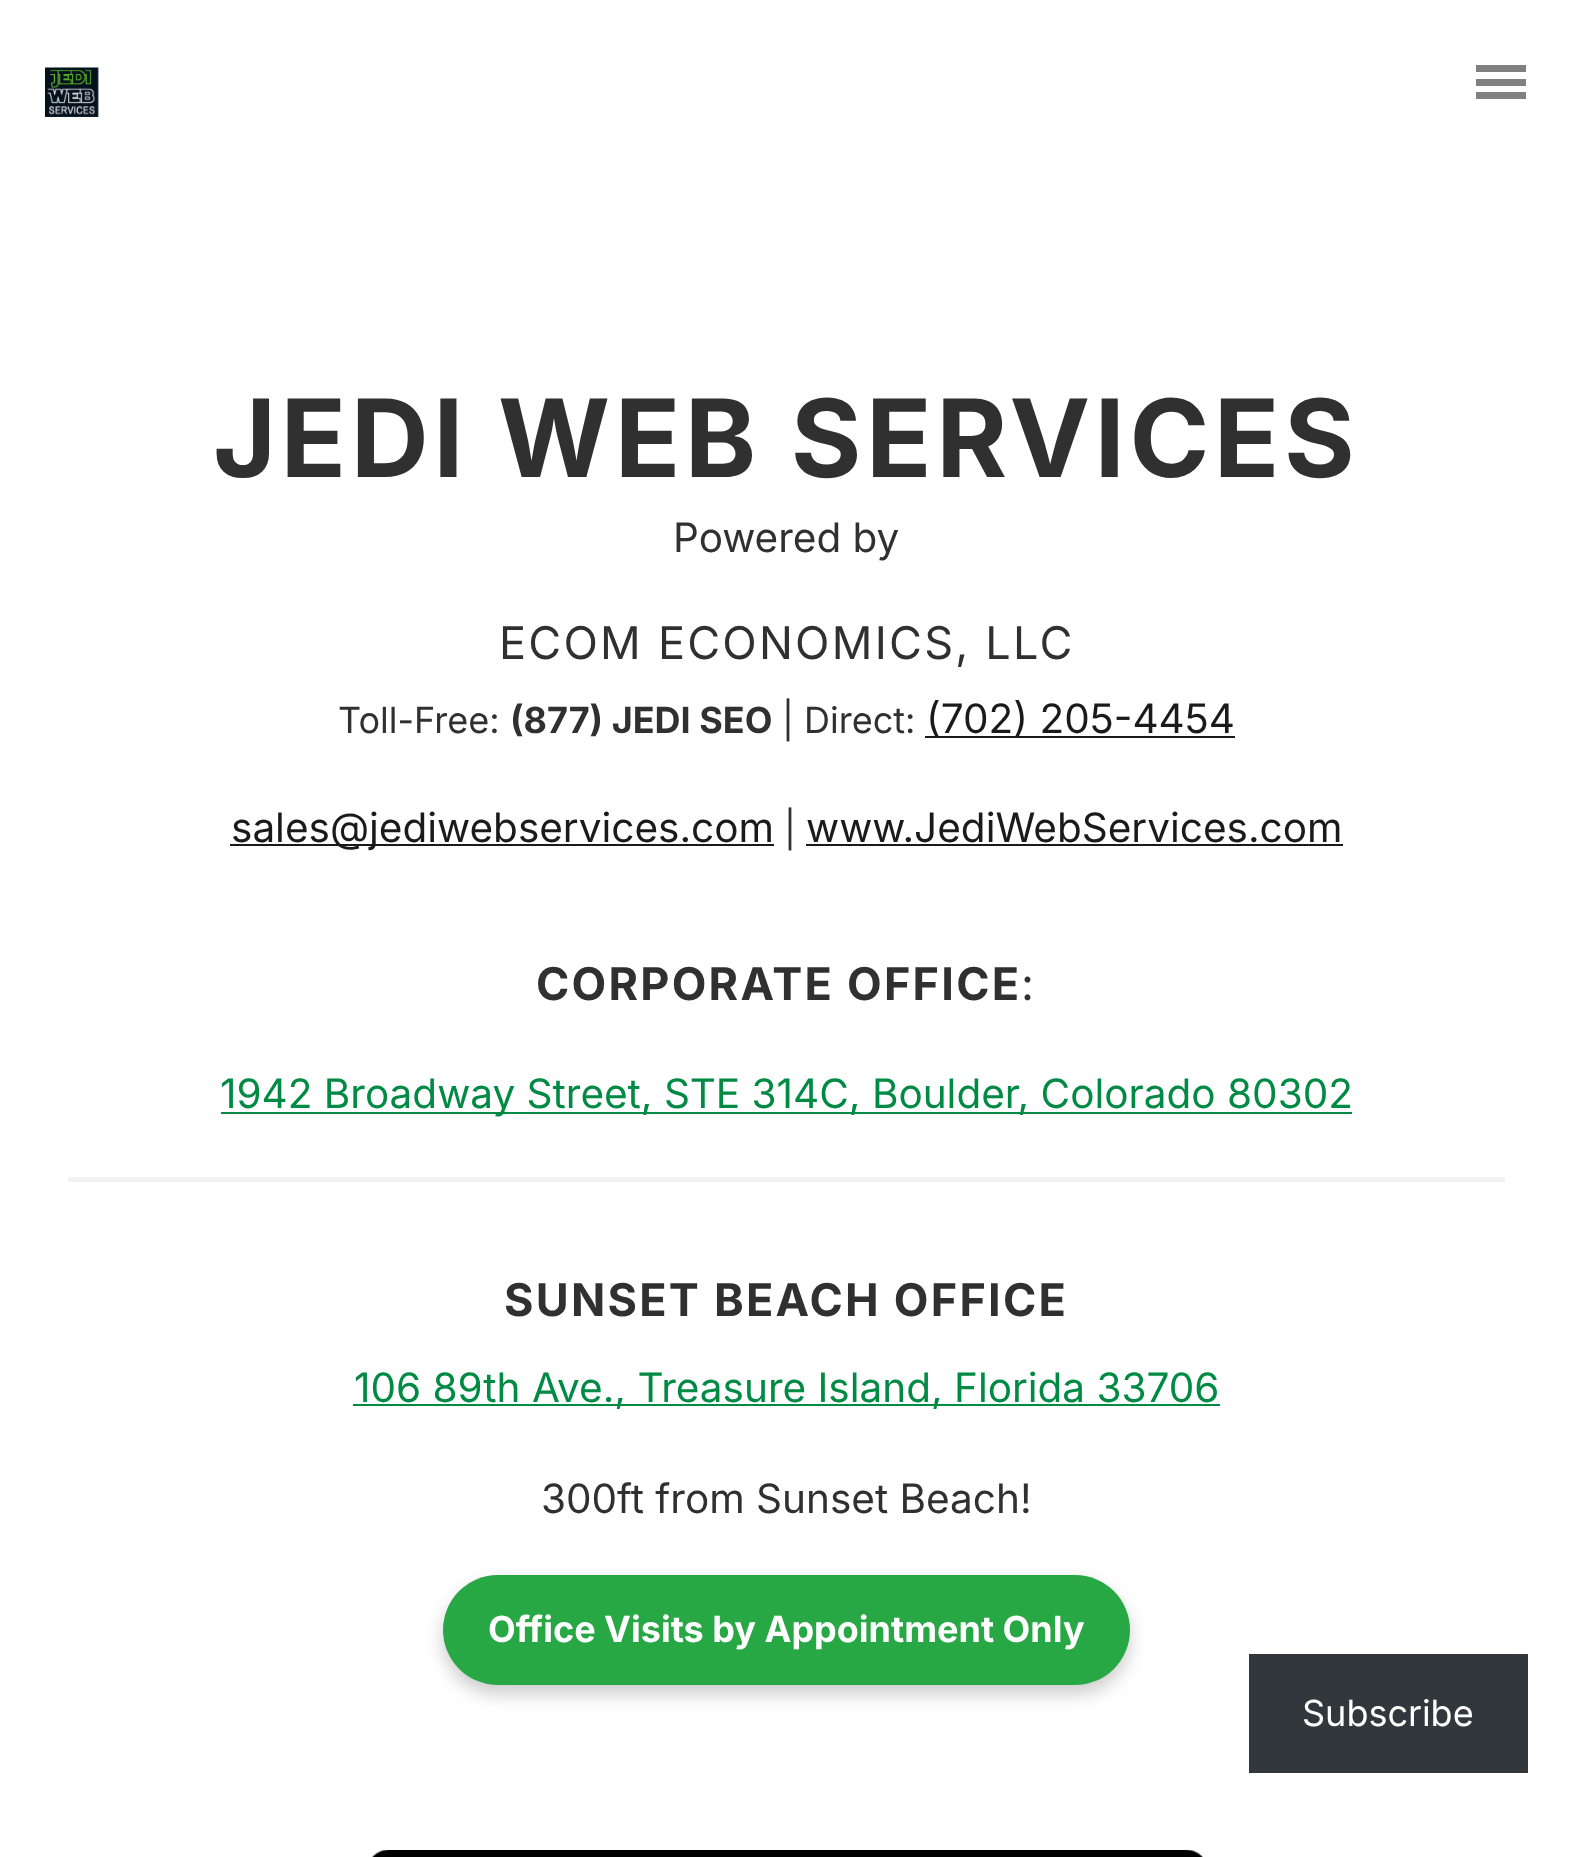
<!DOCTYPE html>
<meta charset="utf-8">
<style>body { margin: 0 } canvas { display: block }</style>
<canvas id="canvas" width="1571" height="1857"></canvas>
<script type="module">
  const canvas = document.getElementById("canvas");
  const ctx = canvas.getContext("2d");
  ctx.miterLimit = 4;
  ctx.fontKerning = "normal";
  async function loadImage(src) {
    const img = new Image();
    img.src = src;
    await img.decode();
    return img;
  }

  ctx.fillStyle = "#ffffff";
  ctx.fillRect(0, 0, 1571, 1857);
  ctx.drawImage(await loadImage("img1.png"), 45, 67, 54, 50);
  ctx.fillStyle = "#808080";
  ctx.fillRect(1476, 65, 50, 7);
  ctx.fillRect(1476, 79, 50, 7);
  ctx.fillRect(1476, 92, 50, 7);
  ctx.letterSpacing = "4.5px";
  ctx.font = "bold 108px Inter";
  ctx.fillStyle = "#303030";
  ctx.fillText("JEDI WEB SERVICES", 213, 477);
  ctx.letterSpacing = "0px";
  ctx.font = "40.5px Inter";
  ctx.fillText("Powered by", 673, 552);
  ctx.letterSpacing = "2.25px";
  ctx.font = "45px Inter";
  ctx.fillText("ECOM ECONOMICS, LLC", 499, 659);
  ctx.letterSpacing = "0px";
  ctx.font = "36px Inter";
  ctx.fillText("Toll-Free:", 338, 733);
  ctx.font = "bold 36px Inter";
  ctx.fillText("(877) JEDI SEO", 510, 733);
  ctx.font = "36px Inter";
  ctx.fillText("| Direct:", 782, 733);
  ctx.fillStyle = "#1a1a1a";
  ctx.fillRect(925, 736, 310, 2);
  ctx.font = "40.5px Inter";
  ctx.fillText("(702) 205-4454", 926, 733);
  ctx.fillRect(230, 844, 544, 2);
  ctx.fillText("sales@jediwebservices.com", 231, 842);
  ctx.font = "36px Inter";
  ctx.fillStyle = "#303030";
  ctx.fillText("|", 784, 842);
  ctx.font = "40.5px Inter";
  ctx.fillStyle = "#1a1a1a";
  ctx.fillText("www.JediWebServices.com", 806, 842);
  ctx.fillRect(806, 844, 537, 2);
  ctx.letterSpacing = "2.25px";
  ctx.font = "bold 45px Inter";
  ctx.fillStyle = "#303030";
  ctx.fillText("CORPORATE OFFICE", 536, 1000);
  ctx.font = "45px Inter";
  ctx.fillText(":", 1021, 1000);
  ctx.fillStyle = "#008a43";
  ctx.fillRect(221, 1112, 1131, 2);
  ctx.letterSpacing = "0px";
  ctx.font = "40.5px Inter";
  ctx.fillText("1942 Broadway Street, STE 314C, Boulder, Colorado 80302", 220, 1108);
  ctx.fillStyle = "#f2f2f2";
  ctx.fillRect(68, 1177, 1437, 5);
  ctx.letterSpacing = "2.25px";
  ctx.font = "bold 45px Inter";
  ctx.fillStyle = "#303030";
  ctx.fillText("SUNSET BEACH OFFICE", 504, 1316);
  ctx.fillStyle = "#008a43";
  ctx.fillRect(353, 1404, 867, 2);
  ctx.letterSpacing = "0px";
  ctx.font = "40.5px Inter";
  ctx.fillText("106 89th Ave., Treasure Island, Florida 33706", 354, 1402);
  ctx.fillStyle = "#303030";
  ctx.fillText("300ft from Sunset Beach!", 541, 1513);
  ctx.fillStyle = "rgba(0, 0, 0, 0.2)";
  ctx.filter = "blur(9px)";
  ctx.beginPath();
  ctx.roundRect(443, 1584, 687, 110, 55);
  ctx.fill();
  ctx.filter = "none";
  ctx.fillStyle = "#28a745";
  ctx.beginPath();
  ctx.roundRect(443, 1575, 687, 110, 55);
  ctx.fill();
  ctx.font = "bold 36px Inter";
  ctx.fillStyle = "#ffffff";
  ctx.fillText("Office Visits by Appointment Only", 488, 1642);
  ctx.drawImage(await loadImage("img2.png"), 371, 1850, 832, 7);
  ctx.fillStyle = "#32373c";
  ctx.fillRect(1249, 1654, 279, 119);
  ctx.font = "36px Inter";
  ctx.fillStyle = "#ffffff";
  ctx.fillText("Subscribe", 1302, 1726);
</script>
